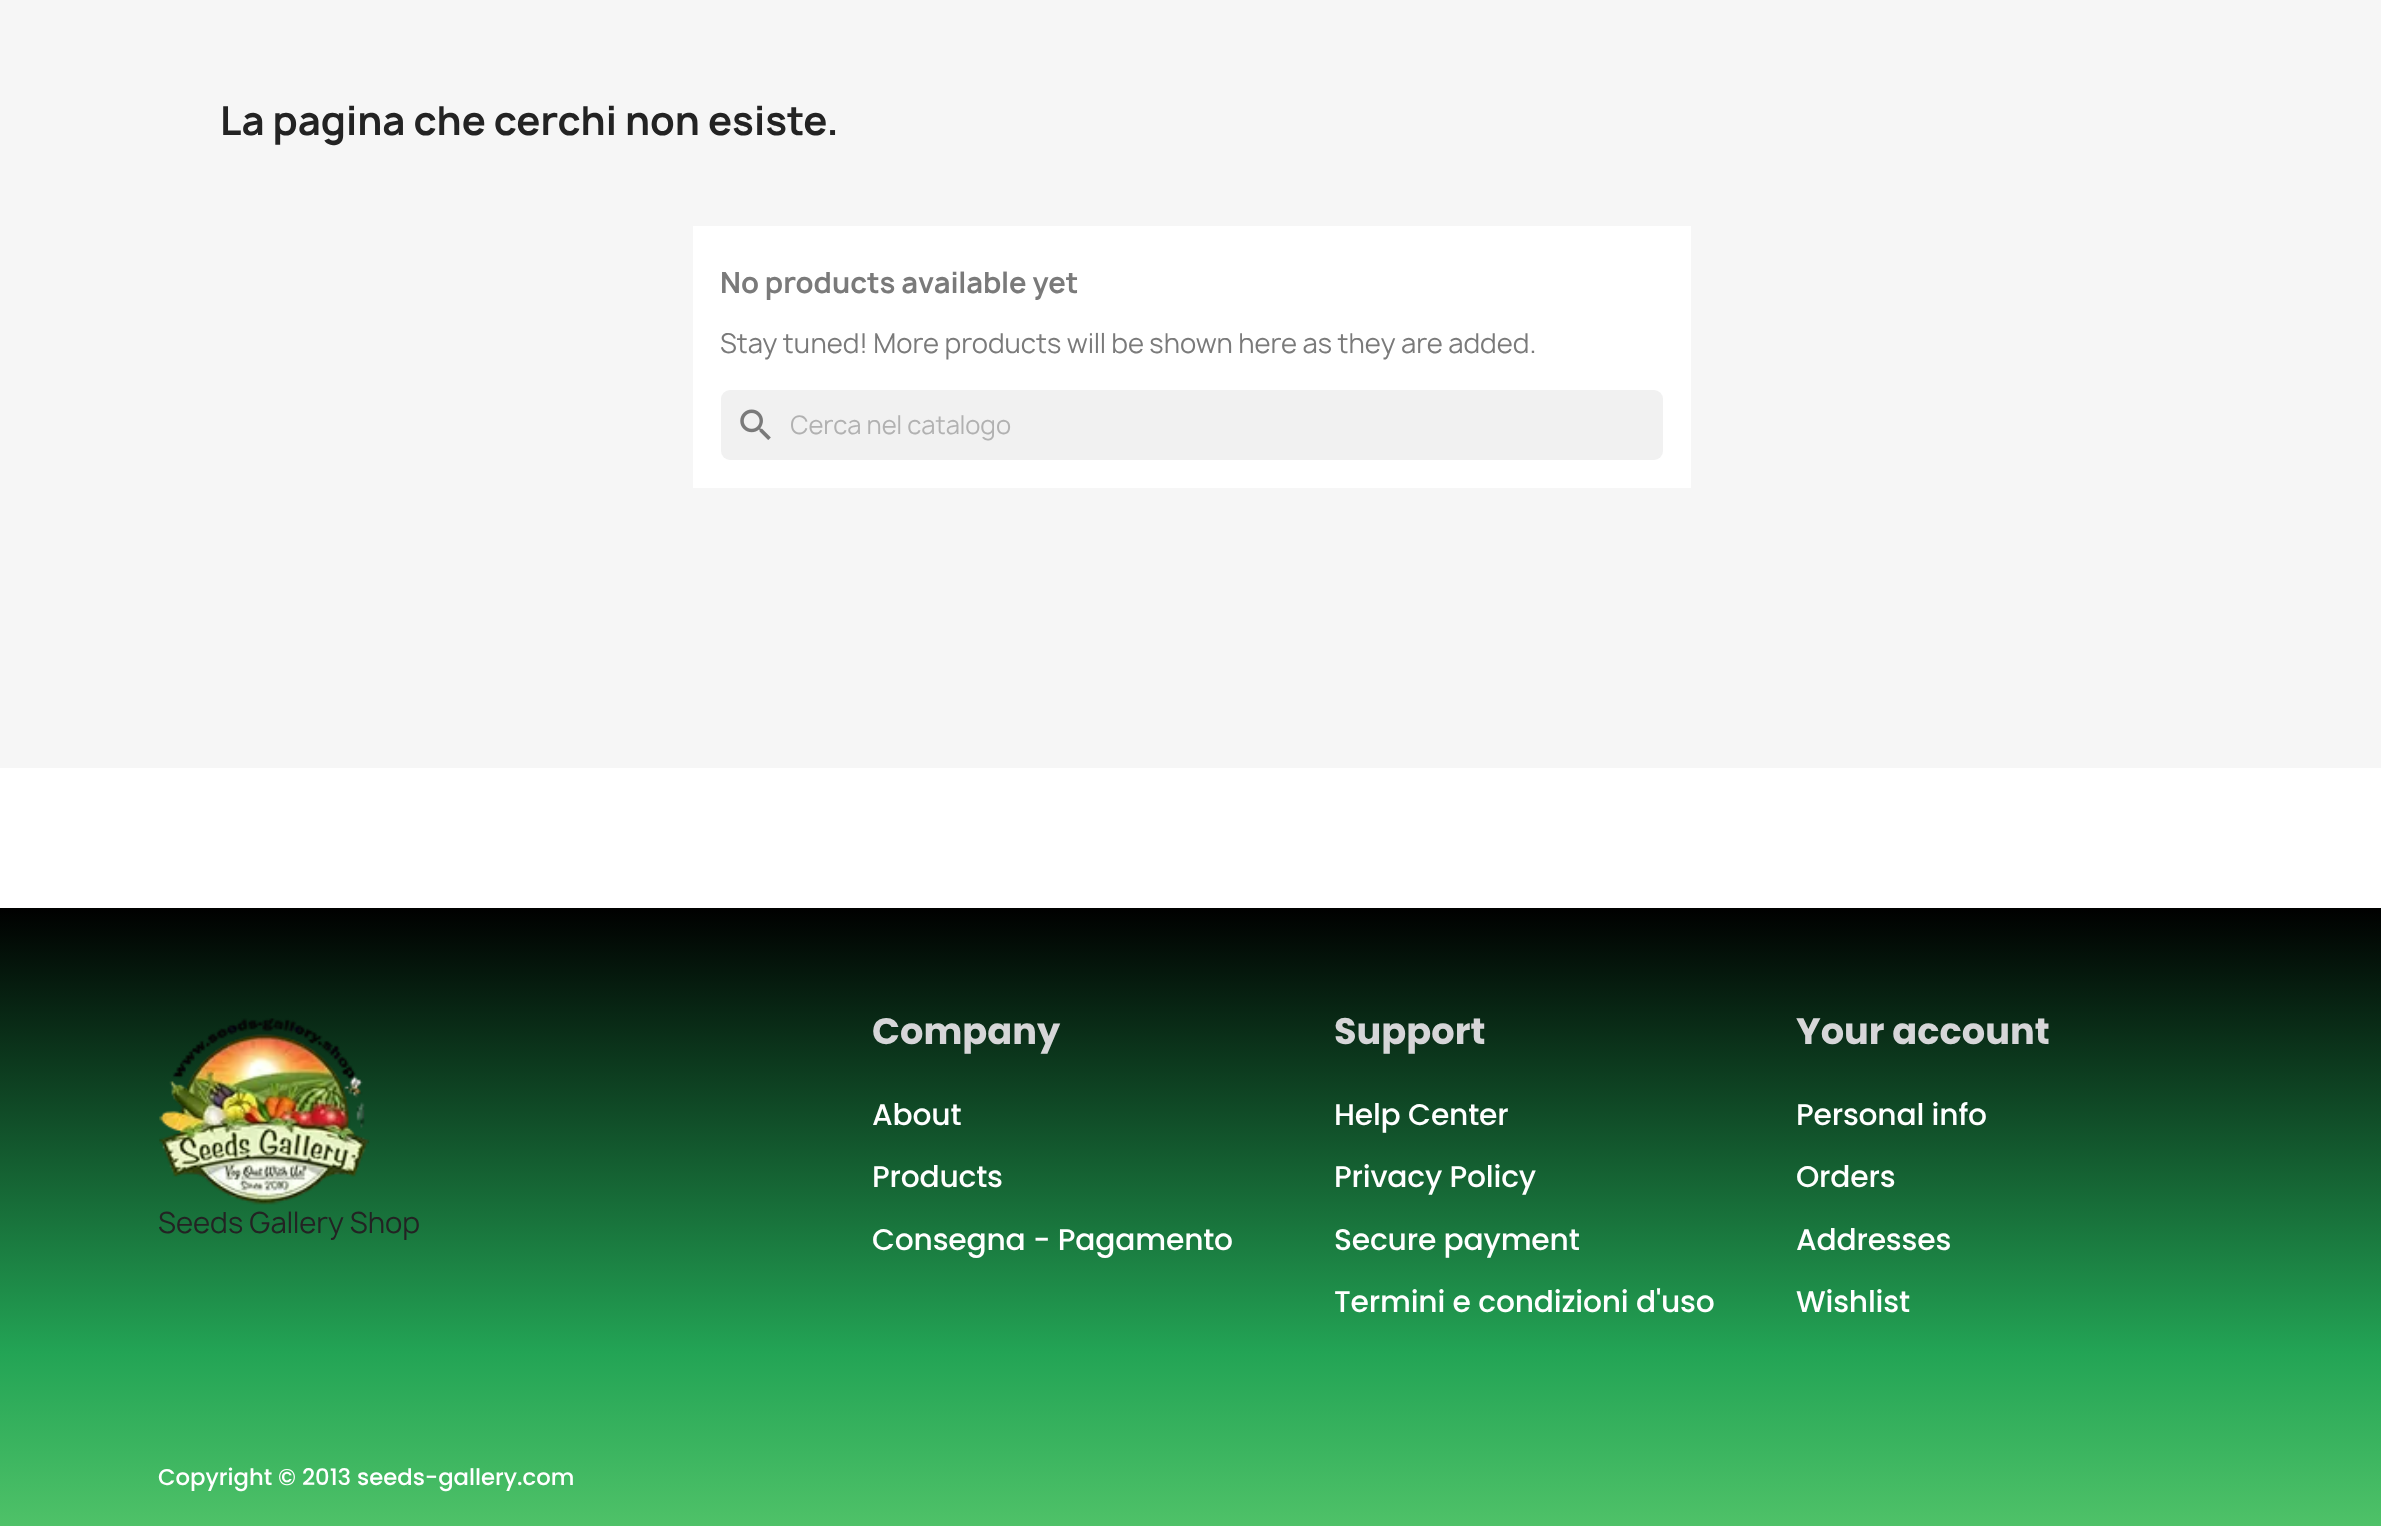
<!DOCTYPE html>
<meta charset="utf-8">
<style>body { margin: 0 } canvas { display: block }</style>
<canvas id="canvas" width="2381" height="1526"></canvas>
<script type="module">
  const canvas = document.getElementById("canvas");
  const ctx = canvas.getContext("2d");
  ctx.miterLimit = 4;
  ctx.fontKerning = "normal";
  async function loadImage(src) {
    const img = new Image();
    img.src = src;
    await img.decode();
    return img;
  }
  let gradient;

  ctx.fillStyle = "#ffffff";
  ctx.fillRect(0, 0, 2381, 1526);
  ctx.fillStyle = "#f6f6f6";
  ctx.fillRect(0, 0, 2381, 768);
  ctx.font = "bold 38.5px Manrope";
  ctx.fillStyle = "#232323";
  ctx.fillText("La pagina che cerchi non esiste.", 220, 135);
  ctx.fillStyle = "#ffffff";
  ctx.fillRect(693, 226, 998, 262);
  ctx.font = "bold 28px Manrope";
  ctx.fillStyle = "#7a7a7a";
  ctx.fillText("No products available yet", 720, 293);
  ctx.font = "26.25px Manrope";
  ctx.fillText("Stay tuned! More products will be shown here as they are added.", 720, 353);
  ctx.fillStyle = "#f1f1f1";
  ctx.beginPath();
  ctx.roundRect(721, 390, 942, 70, 9);
  ctx.fill();
  ctx.drawImage(await loadImage("img1.png"), 740, 409, 31, 31);
  ctx.font = "24.5px Manrope";
  ctx.fillStyle = "#b1b1b1";
  ctx.fillText("Cerca nel catalogo", 790, 434);
  gradient = ctx.createLinearGradient(1191, 908, 1191, 1353);
  gradient.addColorStop(0, "#000000");
  gradient.addColorStop(1, "#23a455");
  ctx.fillStyle = gradient;
  ctx.fillRect(0, 908, 2381, 445);
  ctx.drawImage(await loadImage("img2.png"), 159, 1018, 211, 187);
  ctx.font = "28px Manrope";
  ctx.fillStyle = "#232323";
  ctx.fillText("Seeds Gallery Shop", 158, 1233);
  ctx.font = "bold 36.75px Poppins";
  ctx.fillStyle = "#d6d6d8";
  ctx.fillText("Company", 872, 1044);
  ctx.letterSpacing = "-0.2px";
  ctx.font = "500 29.75px Poppins";
  ctx.fillStyle = "#ffffff";
  ctx.fillText("About", 872, 1125);
  ctx.fillText("Products", 872, 1187);
  ctx.fillText("Consegna - Pagamento", 872, 1250);
  ctx.letterSpacing = "0px";
  ctx.font = "bold 36.75px Poppins";
  ctx.fillStyle = "#d6d6d8";
  ctx.fillText("Support", 1334, 1044);
  ctx.letterSpacing = "-0.2px";
  ctx.font = "500 29.75px Poppins";
  ctx.fillStyle = "#ffffff";
  ctx.fillText("Help Center", 1334, 1125);
  ctx.fillText("Privacy Policy", 1334, 1187);
  ctx.fillText("Secure payment", 1334, 1250);
  ctx.fillText("Termini e condizioni d'uso", 1334, 1312);
  ctx.letterSpacing = "0px";
  ctx.font = "bold 36.75px Poppins";
  ctx.fillStyle = "#d6d6d8";
  ctx.fillText("Your account", 1796, 1044);
  ctx.letterSpacing = "-0.2px";
  ctx.font = "500 29.75px Poppins";
  ctx.fillStyle = "#ffffff";
  ctx.fillText("Personal info", 1796, 1125);
  ctx.fillText("Orders", 1796, 1187);
  ctx.fillText("Addresses", 1796, 1250);
  ctx.fillText("Wishlist", 1796, 1312);
  gradient = ctx.createLinearGradient(1191, 1353, 1191, 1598);
  gradient.addColorStop(0, "#23a455");
  gradient.addColorStop(1, "#61ce70");
  ctx.fillStyle = gradient;
  ctx.fillRect(0, 1353, 2381, 173);
  ctx.letterSpacing = "0px";
  ctx.font = "500 22.75px Poppins";
  ctx.fillStyle = "#ffffff";
  ctx.fillText("Copyright © 2013 seeds-gallery.com", 158, 1485);
</script>
